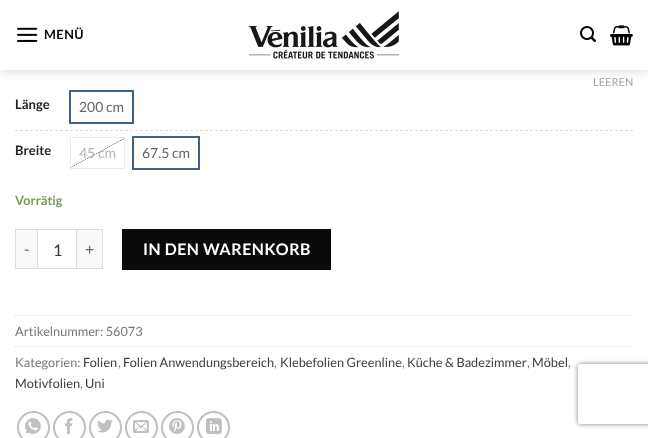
<!DOCTYPE html>
<meta charset="utf-8">
<style>body { margin: 0 } canvas { display: block }</style>
<canvas id="canvas" width="648" height="438"></canvas>
<script type="module">
  const canvas = document.getElementById("canvas");
  const ctx = canvas.getContext("2d");
  ctx.miterLimit = 4;
  ctx.fontKerning = "normal";
  async function loadImage(src) {
    const img = new Image();
    img.src = src;
    await img.decode();
    return img;
  }
  let gradient;

  ctx.fillStyle = "#ffffff";
  ctx.fillRect(0, 0, 648, 438);
  ctx.fillStyle = "rgba(0, 0, 0, 0.15)";
  ctx.filter = "blur(5px)";
  ctx.beginPath();
  ctx.rect(1, 1, 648, 70);
  ctx.fill();
  ctx.filter = "none";
  ctx.fillStyle = "#ffffff";
  ctx.fillRect(0, 0, 648, 70);
  ctx.drawImage(await loadImage("img1.png"), 17, 27, 21, 15);
  ctx.letterSpacing = "0.5px";
  ctx.font = "bold 12.75px Lato";
  ctx.fillStyle = "#000000";
  ctx.fillText("MENÜ", 44, 39);
  ctx.drawImage(await loadImage("img2.png"), 249, 11, 150, 48);
  ctx.drawImage(await loadImage("img3.png"), 580, 26, 16, 16);
  ctx.drawImage(await loadImage("img4.png"), 610, 25, 23, 21);
  ctx.beginPath();
  ctx.moveTo(15, 130.5);
  ctx.lineTo(633, 130.5);
  ctx.strokeStyle = "#dddddd";
  ctx.setLineDash([3, 2]);
  ctx.stroke();
  ctx.letterSpacing = "0px";
  ctx.font = "bold 13px Lato";
  ctx.fillStyle = "#222222";
  ctx.fillText("Breite", 15, 155);
  ctx.font = "11px Lato";
  ctx.fillStyle = "#a3a3a3";
  ctx.fillText("LEEREN", 593, 86);
  ctx.strokeStyle = "#eaeaea";
  ctx.setLineDash([]);
  ctx.strokeRect(70.5, 137.5, 54, 31);
  gradient = ctx.createLinearGradient(110, 176, 85, 130);
  gradient.addColorStop(0.49, "#ffffff");
  gradient.addColorStop(0.5, "#808080");
  gradient.addColorStop(0.51, "#ffffff");
  ctx.fillStyle = gradient;
  ctx.fillRect(71, 138, 53, 30);
  ctx.font = "14px Lato";
  ctx.fillStyle = "#b3b3b3";
  ctx.fillText("45 cm", 79, 158);
  ctx.strokeStyle = "#446084";
  ctx.lineWidth = 2;
  ctx.strokeRect(133, 137, 66, 32);
  ctx.fillStyle = "#666666";
  ctx.fillText("67.5 cm", 142, 158);
  ctx.font = "bold 13px Lato";
  ctx.fillStyle = "#222222";
  ctx.fillText("Länge", 15, 109);
  ctx.strokeRect(70, 91, 63, 32);
  ctx.font = "14px Lato";
  ctx.fillStyle = "#666666";
  ctx.fillText("200 cm", 79, 112);
  ctx.font = "bold 12.75px Lato";
  ctx.fillStyle = "#7a9c59";
  ctx.fillText("Vorrätig", 15, 205);
  ctx.fillStyle = "#f9f9f9";
  ctx.fillRect(16, 230, 21, 38);
  ctx.fillStyle = "#dddddd";
  ctx.fillRect(15, 229, 22, 1);
  ctx.fillRect(15, 268, 22, 1);
  ctx.fillRect(15, 229, 1, 40);
  ctx.font = "16px Lato";
  ctx.fillStyle = "#666666";
  ctx.fillText("-", 24, 255);
  ctx.strokeStyle = "#dddddd";
  ctx.lineWidth = 1;
  ctx.strokeRect(37.5, 229.5, 39, 39);
  ctx.fillStyle = "#333333";
  ctx.fillText("1", 53, 256);
  ctx.fillStyle = "#f9f9f9";
  ctx.fillRect(77, 230, 25, 38);
  ctx.fillStyle = "#dddddd";
  ctx.fillRect(77, 229, 26, 1);
  ctx.fillRect(102, 229, 1, 40);
  ctx.fillRect(77, 268, 26, 1);
  ctx.fillStyle = "#666666";
  ctx.fillText("+", 85, 255);
  ctx.fillStyle = "#0a0a0a";
  ctx.fillRect(122, 229, 209, 41);
  ctx.letterSpacing = "0.5px";
  ctx.font = "bold 16px Lato";
  ctx.fillStyle = "#ffffff";
  ctx.fillText("IN DEN WARENKORB", 143, 255);
  ctx.beginPath();
  ctx.moveTo(15, 315.5);
  ctx.lineTo(633, 315.5);
  ctx.setLineDash([1, 1]);
  ctx.stroke();
  ctx.letterSpacing = "0px";
  ctx.font = "12.75px Lato";
  ctx.fillStyle = "#777777";
  ctx.fillText("Artikelnummer: 56073", 15, 336);
  ctx.beginPath();
  ctx.moveTo(15, 346.5);
  ctx.lineTo(633, 346.5);
  ctx.stroke();
  ctx.fillText("Kategorien:", 15, 367);
  ctx.fillStyle = "#3d3d3d";
  ctx.fillText("Folien", 83, 367);
  ctx.fillStyle = "#777777";
  ctx.fillText(",", 118, 367);
  ctx.fillStyle = "#3d3d3d";
  ctx.fillText("Folien Anwendungsbereich", 123, 367);
  ctx.fillStyle = "#777777";
  ctx.fillText(",", 274, 367);
  ctx.fillStyle = "#3d3d3d";
  ctx.fillText("Klebefolien Greenline", 280, 367);
  ctx.fillStyle = "#777777";
  ctx.fillText(",", 402, 367);
  ctx.fillStyle = "#3d3d3d";
  ctx.fillText("Küche & Badezimmer", 407, 367);
  ctx.fillStyle = "#777777";
  ctx.fillText(",", 527, 367);
  ctx.fillStyle = "#3d3d3d";
  ctx.fillText("Möbel", 532, 367);
  ctx.fillStyle = "#777777";
  ctx.fillText(",", 568, 367);
  ctx.fillStyle = "#3d3d3d";
  ctx.fillText("Motivfolien", 15, 388);
  ctx.fillStyle = "#777777";
  ctx.fillText(",", 80, 388);
  ctx.fillStyle = "#3d3d3d";
  ctx.fillText("Uni", 85, 388);
  ctx.beginPath();
  ctx.arc(33.5, 427.5, 15.5, 0, Math.PI * 2);
  ctx.strokeStyle = "#c0c0c0";
  ctx.lineWidth = 2;
  ctx.setLineDash([]);
  ctx.stroke();
  ctx.drawImage(await loadImage("img5.png"), 25, 418, 16, 16);
  ctx.beginPath();
  ctx.arc(69.5, 427.5, 15.5, 0, Math.PI * 2);
  ctx.stroke();
  ctx.drawImage(await loadImage("img6.png"), 65, 418, 8, 16);
  ctx.beginPath();
  ctx.arc(105.5, 427.5, 15.5, 0, Math.PI * 2);
  ctx.stroke();
  ctx.drawImage(await loadImage("img7.png"), 97, 419, 16, 14);
  ctx.beginPath();
  ctx.arc(141.5, 427.5, 15.5, 0, Math.PI * 2);
  ctx.stroke();
  ctx.drawImage(await loadImage("img8.png"), 133, 420, 16, 13);
  ctx.beginPath();
  ctx.arc(177.5, 427.5, 15.5, 0, Math.PI * 2);
  ctx.stroke();
  ctx.drawImage(await loadImage("img9.png"), 169, 418, 16, 16);
  ctx.beginPath();
  ctx.arc(213.5, 427.5, 15.5, 0, Math.PI * 2);
  ctx.stroke();
  ctx.drawImage(await loadImage("img10.png"), 206, 418, 16, 16);
  ctx.save();
  ctx.beginPath();
  ctx.moveTo(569, 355);
  ctx.lineTo(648, 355);
  ctx.lineTo(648, 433);
  ctx.lineTo(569, 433);
  ctx.closePath();
  ctx.moveTo(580, 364);
  ctx.lineTo(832, 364);
  ctx.bezierCurveTo(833, 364, 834, 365, 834, 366);
  ctx.lineTo(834, 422);
  ctx.bezierCurveTo(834, 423, 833, 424, 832, 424);
  ctx.lineTo(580, 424);
  ctx.bezierCurveTo(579, 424, 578, 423, 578, 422);
  ctx.lineTo(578, 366);
  ctx.bezierCurveTo(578, 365, 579, 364, 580, 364);
  ctx.closePath();
  ctx.clip("evenodd");
  ctx.fillStyle = "#808080";
  ctx.filter = "blur(2.5px)";
  ctx.beginPath();
  ctx.roundRect(578, 364, 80, 60, 2);
  ctx.fill();
  ctx.filter = "none";
  ctx.restore();
</script>
